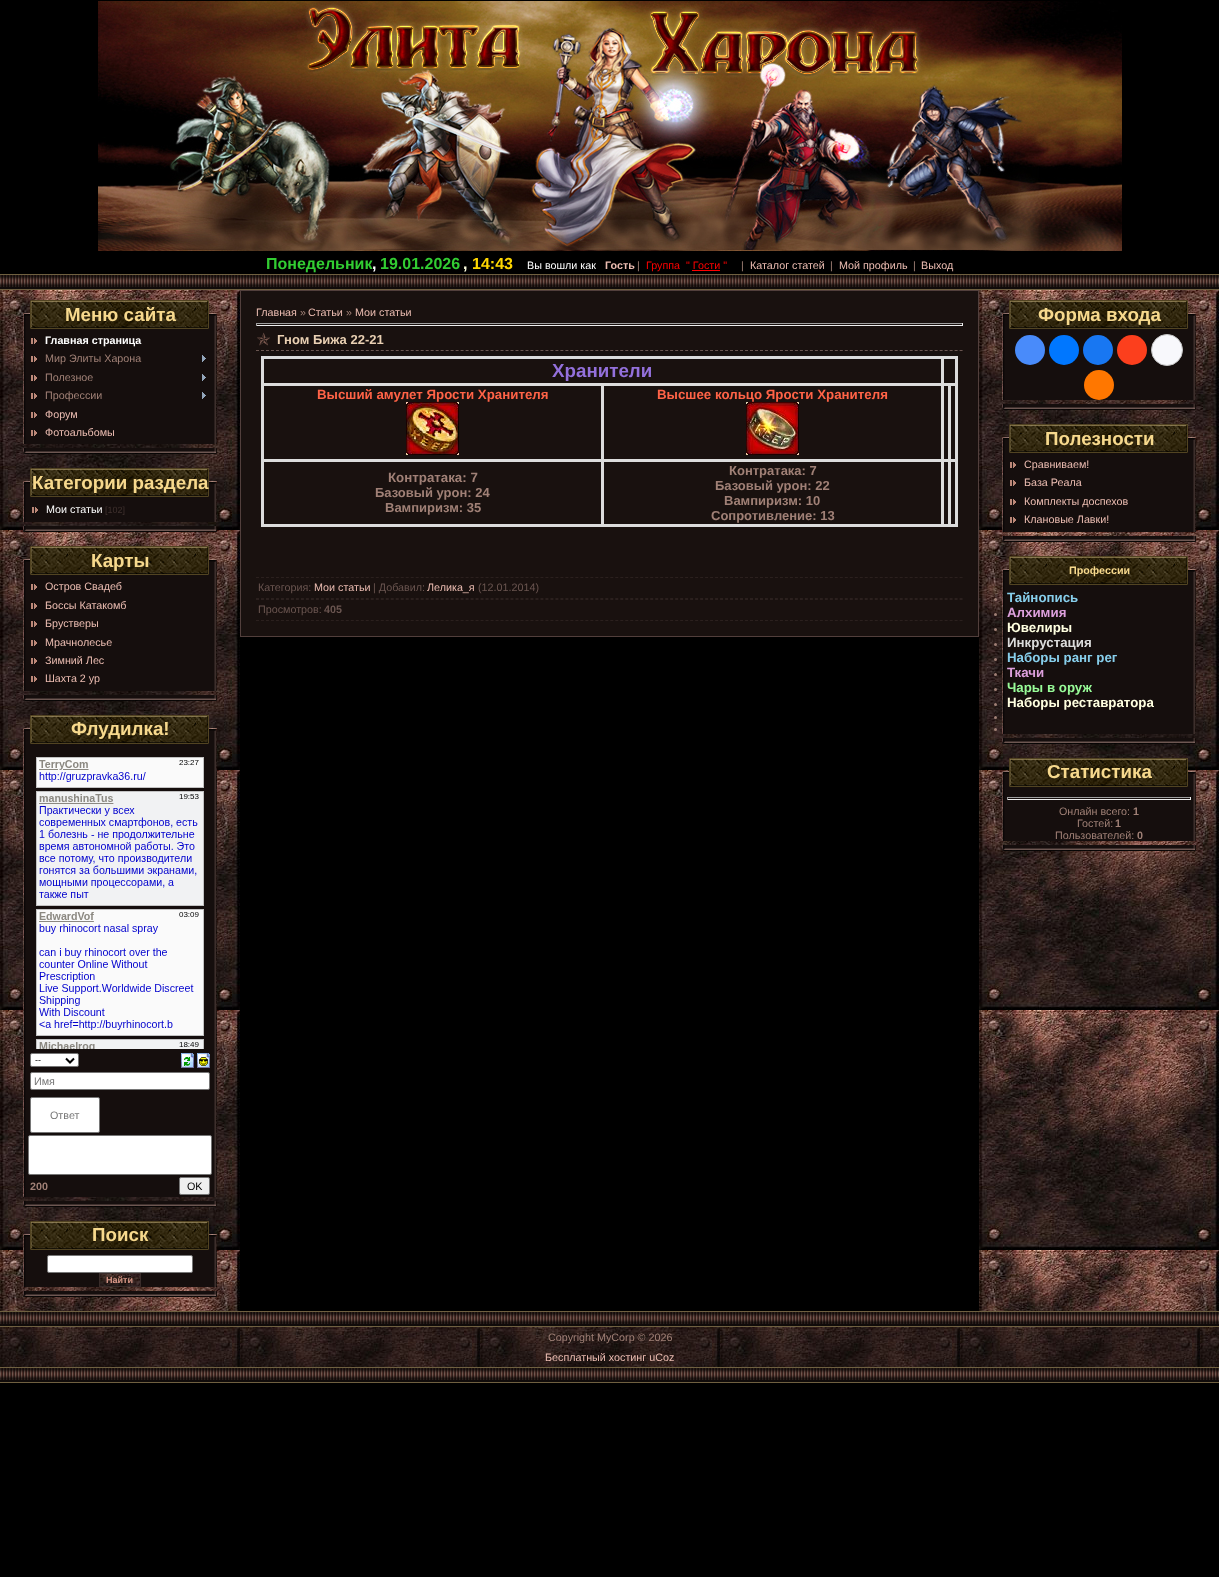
<!DOCTYPE html>
<meta charset="utf-8">
<style>body { margin: 0 } canvas { display: block }</style>
<canvas id="canvas" width="1219" height="1577"></canvas>
<script type="module">
  const canvas = document.getElementById("canvas");
  const ctx = canvas.getContext("2d");
  ctx.miterLimit = 4;
  ctx.fontKerning = "normal";
  async function loadImage(src) {
    const img = new Image();
    img.src = src;
    await img.decode();
    return img;
  }

  ctx.fillStyle = "#000000";
  ctx.fillRect(0, 0, 1219, 1577);
  ctx.drawImage(await loadImage("img1.png"), 98, 1, 1024, 250);
  ctx.font = "bold 16px Liberation Sans";
  ctx.fillStyle = "#32cd32";
  ctx.fillText("Понедельник", 266, 269);
  ctx.fillStyle = "#ffffff";
  ctx.fillText(",", 372, 269);
  ctx.fillStyle = "#32cd32";
  ctx.fillText("19.01.2026", 380, 269);
  ctx.fillStyle = "#ffffe0";
  ctx.fillText(",", 463, 269);
  ctx.fillStyle = "#ffd700";
  ctx.fillText("14:43", 472, 269);
  ctx.font = "10.75px Liberation Sans";
  ctx.fillStyle = "#ffffff";
  ctx.fillText("Вы вошли как", 527, 269);
  ctx.font = "bold 10.75px Liberation Sans";
  ctx.fillStyle = "#ebbcb1";
  ctx.fillText("Гость", 605, 269);
  ctx.font = "10.75px Liberation Sans";
  ctx.fillStyle = "#a08076";
  ctx.fillText("|", 637, 269);
  ctx.fillStyle = "#ff0000";
  ctx.fillText("Группа", 646, 269);
  ctx.fillText("\" Гости \"", 686, 269);
  ctx.fillRect(692, 270, 28, 1);
  ctx.fillStyle = "#a08076";
  ctx.fillText("|", 741, 269);
  ctx.fillStyle = "#ebbcb1";
  ctx.fillText("Каталог статей", 750, 269);
  ctx.fillStyle = "#a08076";
  ctx.fillText("|", 830, 269);
  ctx.fillStyle = "#ebbcb1";
  ctx.fillText("Мой профиль", 839, 269);
  ctx.fillStyle = "#a08076";
  ctx.fillText("|", 913, 269);
  ctx.fillStyle = "#ebbcb1";
  ctx.fillText("Выход", 921, 269);
  ctx.drawImage(await loadImage("img2.png"), 0, 274, 1219, 16);
  ctx.drawImage(await loadImage("img3.png"), 0, 290, 240, 1021);
  ctx.drawImage(await loadImage("img4.png"), 23, 300, 194, 29);
  ctx.font = "bold 18.75px Liberation Sans";
  ctx.fillStyle = "#f7d98d";
  ctx.fillText("Меню сайта", 65, 321);
  ctx.drawImage(await loadImage("img5.png"), 23, 329, 194, 115);
  ctx.drawImage(await loadImage("img6.png"), 31, 338, 6, 6);
  ctx.font = "bold 10.75px Liberation Sans";
  ctx.fillStyle = "#ffffff";
  ctx.fillText("Главная страница", 45, 344);
  ctx.drawImage(await loadImage("img6.png"), 31, 356, 6, 6);
  ctx.font = "10.75px Liberation Sans";
  ctx.fillStyle = "#a08076";
  ctx.fillText("Мир Элиты Харона", 45, 362);
  ctx.drawImage(await loadImage("img7.png"), 202, 355, 4, 7);
  ctx.drawImage(await loadImage("img6.png"), 31, 375, 6, 6);
  ctx.fillText("Полезное", 45, 381);
  ctx.drawImage(await loadImage("img7.png"), 202, 374, 4, 7);
  ctx.drawImage(await loadImage("img6.png"), 31, 393, 6, 6);
  ctx.fillText("Профессии", 45, 399);
  ctx.drawImage(await loadImage("img7.png"), 202, 392, 4, 7);
  ctx.drawImage(await loadImage("img6.png"), 31, 412, 6, 6);
  ctx.fillStyle = "#ebbcb1";
  ctx.fillText("Форум", 45, 418);
  ctx.drawImage(await loadImage("img6.png"), 31, 430, 6, 6);
  ctx.fillText("Фотоальбомы", 45, 436);
  ctx.drawImage(await loadImage("img8.png"), 23, 448, 194, 6);
  ctx.drawImage(await loadImage("img9.png"), 23, 468, 194, 29);
  ctx.font = "bold 18.75px Liberation Sans";
  ctx.fillStyle = "#f7d98d";
  ctx.fillText("Категории раздела", 32, 489);
  ctx.drawImage(await loadImage("img10.png"), 23, 497, 194, 25);
  ctx.drawImage(await loadImage("img6.png"), 32, 507, 6, 6);
  ctx.font = "10.75px Liberation Sans";
  ctx.fillStyle = "#ffffff";
  ctx.fillText("Мои статьи", 46, 513);
  ctx.font = "9px Liberation Sans";
  ctx.fillStyle = "#3f312e";
  ctx.fillText("[102]", 105, 513);
  ctx.drawImage(await loadImage("img8.png"), 23, 526, 194, 6);
  ctx.drawImage(await loadImage("img11.png"), 23, 546, 194, 29);
  ctx.font = "bold 18.75px Liberation Sans";
  ctx.fillStyle = "#f7d98d";
  ctx.fillText("Карты", 91, 567);
  ctx.drawImage(await loadImage("img12.png"), 23, 575, 194, 116);
  ctx.drawImage(await loadImage("img6.png"), 31, 584, 6, 6);
  ctx.font = "10.75px Liberation Sans";
  ctx.fillStyle = "#ebbcb1";
  ctx.fillText("Остров Свадеб", 45, 590);
  ctx.drawImage(await loadImage("img6.png"), 31, 603, 6, 6);
  ctx.fillText("Боссы Катакомб", 45, 609);
  ctx.drawImage(await loadImage("img6.png"), 31, 621, 6, 6);
  ctx.fillText("Брустверы", 45, 627);
  ctx.drawImage(await loadImage("img6.png"), 31, 640, 6, 6);
  ctx.fillText("Мрачнолесье", 45, 646);
  ctx.drawImage(await loadImage("img6.png"), 31, 658, 6, 6);
  ctx.fillText("Зимний Лес", 45, 664);
  ctx.drawImage(await loadImage("img6.png"), 31, 676, 6, 6);
  ctx.fillText("Шахта 2 ур", 45, 682);
  ctx.drawImage(await loadImage("img8.png"), 23, 695, 194, 6);
  ctx.drawImage(await loadImage("img13.png"), 23, 715, 194, 29);
  ctx.font = "bold 18.75px Liberation Sans";
  ctx.fillStyle = "#f7d98d";
  ctx.fillText("Флудилка!", 71, 735);
  ctx.drawImage(await loadImage("img14.png"), 23, 744, 194, 453);
  ctx.drawImage(await loadImage("img15.png"), 36, 757, 168, 292);
  ctx.fillStyle = "#ffffff";
  ctx.beginPath();
  ctx.roundRect(30.5, 1053.5, 48, 13, 1.5);
  ctx.fill();
  ctx.strokeStyle = "#767676";
  ctx.stroke();
  ctx.beginPath();
  ctx.moveTo(66, 1058.5);
  ctx.lineTo(70, 1062.5);
  ctx.lineTo(74, 1058.5);
  ctx.strokeStyle = "#000000";
  ctx.lineWidth = 2;
  ctx.stroke();
  ctx.font = "9px Liberation Sans";
  ctx.fillStyle = "#000000";
  ctx.fillText("--", 35, 1063);
  ctx.drawImage(await loadImage("img16.png"), 181, 1053, 13, 15);
  ctx.drawImage(await loadImage("img17.png"), 197, 1053, 13, 15);
  ctx.fillStyle = "#ffffff";
  ctx.beginPath();
  ctx.roundRect(30.5, 1072.5, 179, 17, 1.5);
  ctx.fill();
  ctx.strokeStyle = "#767676";
  ctx.lineWidth = 1;
  ctx.stroke();
  ctx.font = "10.75px Liberation Sans";
  ctx.fillStyle = "#757575";
  ctx.fillText("Имя", 34, 1085);
  ctx.fillStyle = "#ffffff";
  ctx.beginPath();
  ctx.roundRect(30.5, 1097.5, 69, 35, 1.5);
  ctx.fill();
  ctx.stroke();
  ctx.fillStyle = "#757575";
  ctx.fillText("Ответ", 50, 1119);
  ctx.fillStyle = "#ffffff";
  ctx.beginPath();
  ctx.roundRect(28.5, 1135.5, 183, 39, 1.5);
  ctx.fill();
  ctx.stroke();
  ctx.font = "bold 10.75px Liberation Sans";
  ctx.fillStyle = "#a08076";
  ctx.fillText("200", 30, 1190);
  ctx.fillStyle = "#efefef";
  ctx.beginPath();
  ctx.roundRect(179.5, 1177.5, 30, 17, 1.5);
  ctx.fill();
  ctx.stroke();
  ctx.font = "10.75px Liberation Sans";
  ctx.fillStyle = "#000000";
  ctx.fillText("OK", 187, 1190);
  ctx.drawImage(await loadImage("img8.png"), 23, 1201, 194, 6);
  ctx.drawImage(await loadImage("img18.png"), 23, 1221, 194, 29);
  ctx.font = "bold 18.75px Liberation Sans";
  ctx.fillStyle = "#f7d98d";
  ctx.fillText("Поиск", 92, 1241);
  ctx.drawImage(await loadImage("img19.png"), 23, 1250, 194, 37);
  ctx.fillStyle = "#ffffff";
  ctx.beginPath();
  ctx.roundRect(47.5, 1255.5, 145, 17, 1.5);
  ctx.fill();
  ctx.stroke();
  ctx.drawImage(await loadImage("img20.png"), 100, 1274, 40, 12);
  ctx.strokeStyle = "#392c2a";
  ctx.strokeRect(99.5, 1273.5, 41, 13);
  ctx.font = "bold 9px Liberation Sans";
  ctx.fillStyle = "#dc9a8a";
  ctx.fillText("Найти", 106, 1283);
  ctx.drawImage(await loadImage("img8.png"), 23, 1291, 194, 6);
  ctx.strokeStyle = "#523f3c";
  ctx.strokeRect(240.5, 290.5, 738, 346);
  ctx.fillStyle = "#19110f";
  ctx.fillRect(241, 291, 737, 345);
  ctx.font = "10.75px Liberation Sans";
  ctx.fillStyle = "#ebbcb1";
  ctx.fillText("Главная", 256, 316);
  ctx.fillStyle = "#a08076";
  ctx.fillText("»", 300, 316);
  ctx.fillStyle = "#ebbcb1";
  ctx.fillText("Статьи", 308, 316);
  ctx.fillStyle = "#a08076";
  ctx.fillText("»", 346, 316);
  ctx.fillStyle = "#ebbcb1";
  ctx.fillText("Мои статьи", 355, 316);
  ctx.fillStyle = "#9f9f9f";
  ctx.fillRect(256, 323, 707, 1);
  ctx.fillStyle = "#eeeeee";
  ctx.fillRect(962, 323, 1, 3);
  ctx.fillRect(256, 325, 707, 1);
  ctx.fillStyle = "#9f9f9f";
  ctx.fillRect(256, 323, 1, 3);
  ctx.drawImage(await loadImage("img21.png"), 257, 332, 13, 14);
  ctx.font = "bold 13px Liberation Sans";
  ctx.fillStyle = "#e9d0b3";
  ctx.fillText("Гном Бижа 22-21", 277, 344);
  ctx.beginPath();
  ctx.moveTo(256, 350.5);
  ctx.lineTo(963, 350.5);
  ctx.strokeStyle = "#6a5550";
  ctx.setLineDash([3, 1.99]);
  ctx.stroke();
  ctx.fillStyle = "#dcdcdc";
  ctx.fillRect(941, 356, 17, 3);
  ctx.fillRect(948, 383, 10, 3);
  ctx.fillRect(948, 459, 10, 3);
  ctx.fillRect(955, 459, 3, 68);
  ctx.fillRect(948, 524, 10, 3);
  ctx.fillRect(948, 459, 3, 68);
  ctx.fillRect(941, 459, 10, 3);
  ctx.fillRect(948, 383, 3, 79);
  ctx.fillRect(941, 383, 10, 3);
  ctx.fillRect(941, 524, 10, 3);
  ctx.fillRect(941, 459, 3, 68);
  ctx.fillRect(601, 459, 343, 3);
  ctx.fillRect(941, 383, 3, 79);
  ctx.fillRect(601, 383, 343, 3);
  ctx.fillRect(941, 356, 3, 30);
  ctx.fillRect(261, 356, 683, 3);
  ctx.fillRect(601, 524, 343, 3);
  ctx.fillRect(601, 459, 3, 68);
  ctx.fillRect(261, 459, 343, 3);
  ctx.fillRect(601, 383, 3, 79);
  ctx.fillRect(261, 383, 343, 3);
  ctx.fillRect(261, 524, 343, 3);
  ctx.fillRect(261, 459, 3, 68);
  ctx.fillRect(261, 383, 3, 79);
  ctx.fillRect(261, 356, 3, 30);
  ctx.font = "bold 18.75px Liberation Sans";
  ctx.fillStyle = "#9370db";
  ctx.fillText("Хранители", 552, 377);
  ctx.fillStyle = "#dcdcdc";
  ctx.fillRect(955, 383, 3, 79);
  ctx.fillRect(955, 356, 3, 30);
  ctx.font = "bold 13.3px Liberation Sans";
  ctx.fillStyle = "#ff6347";
  ctx.fillText("Высший амулет Ярости Хранителя", 317, 399);
  ctx.drawImage(await loadImage("img22.png"), 406, 402, 53, 53);
  ctx.fillText("Высшее кольцо Ярости Хранителя", 657, 399);
  ctx.drawImage(await loadImage("img23.png"), 746, 402, 53, 53);
  ctx.fillStyle = "#a08076";
  ctx.fillText("Контратака: 7", 388, 482);
  ctx.font = "bold 13px Liberation Sans";
  ctx.fillText("Базовый урон: 24", 375, 497);
  ctx.fillText("Вампиризм: 35", 385, 512);
  ctx.fillText("Контратака: 7", 729, 475);
  ctx.fillText("Базовый урон: 22", 715, 490);
  ctx.fillText("Вампиризм: 10", 724, 505);
  ctx.fillText("Сопротивление: 13", 711, 520);
  ctx.beginPath();
  ctx.moveTo(256, 577.5);
  ctx.lineTo(963, 577.5);
  ctx.strokeStyle = "#2b201e";
  ctx.stroke();
  ctx.beginPath();
  ctx.moveTo(256, 598.5);
  ctx.lineTo(963, 598.5);
  ctx.stroke();
  ctx.font = "10.75px Liberation Sans";
  ctx.fillStyle = "#6a5550";
  ctx.fillText("Категория:", 258, 591);
  ctx.fillStyle = "#ebbcb1";
  ctx.fillText("Мои статьи", 314, 591);
  ctx.fillStyle = "#6a5550";
  ctx.fillText("| Добавил:", 373, 591);
  ctx.fillStyle = "#ebbcb1";
  ctx.fillText("Лелика_я", 427, 591);
  ctx.fillStyle = "#6a5550";
  ctx.fillText("(12.01.2014)", 478, 591);
  ctx.beginPath();
  ctx.moveTo(256, 599.5);
  ctx.lineTo(963, 599.5);
  ctx.stroke();
  ctx.beginPath();
  ctx.moveTo(256, 620.5);
  ctx.lineTo(963, 620.5);
  ctx.stroke();
  ctx.fillText("Просмотров:", 258, 613);
  ctx.font = "bold 10.75px Liberation Sans";
  ctx.fillText("405", 324, 613);
  ctx.drawImage(await loadImage("img3.png"), 979, 290, 240, 1021);
  ctx.drawImage(await loadImage("img4.png"), 1002, 300, 194, 29);
  ctx.font = "bold 18.75px Liberation Sans";
  ctx.fillStyle = "#f7d98d";
  ctx.fillText("Форма входа", 1038, 321);
  ctx.drawImage(await loadImage("img24.png"), 1002, 329, 194, 71);
  ctx.fillStyle = "#498bfa";
  ctx.beginPath();
  ctx.arc(1030, 350, 15, 0, Math.PI * 2);
  ctx.fill();
  ctx.fillStyle = "#0077ff";
  ctx.beginPath();
  ctx.arc(1064, 350, 15, 0, Math.PI * 2);
  ctx.fill();
  ctx.fillStyle = "#1877f2";
  ctx.beginPath();
  ctx.arc(1098, 350, 15, 0, Math.PI * 2);
  ctx.fill();
  ctx.fillStyle = "#fc3f1d";
  ctx.beginPath();
  ctx.arc(1132, 350, 15, 0, Math.PI * 2);
  ctx.fill();
  ctx.fillStyle = "#f8f8fc";
  ctx.beginPath();
  ctx.arc(1167, 350, 15.5, 0, Math.PI * 2);
  ctx.fill();
  ctx.strokeStyle = "#c4c4c4";
  ctx.setLineDash([]);
  ctx.stroke();
  ctx.fillStyle = "#ff7700";
  ctx.beginPath();
  ctx.arc(1099, 385, 15, 0, Math.PI * 2);
  ctx.fill();
  ctx.drawImage(await loadImage("img8.png"), 1002, 404, 194, 6);
  ctx.drawImage(await loadImage("img25.png"), 1002, 424, 194, 29);
  ctx.fillStyle = "#f7d98d";
  ctx.fillText("Полезности", 1045, 445);
  ctx.drawImage(await loadImage("img26.png"), 1002, 453, 194, 79);
  ctx.drawImage(await loadImage("img6.png"), 1010, 462, 6, 6);
  ctx.font = "10.75px Liberation Sans";
  ctx.fillStyle = "#ebbcb1";
  ctx.fillText("Сравниваем!", 1024, 468);
  ctx.drawImage(await loadImage("img6.png"), 1010, 480, 6, 6);
  ctx.fillText("База Реала", 1024, 486);
  ctx.drawImage(await loadImage("img6.png"), 1010, 499, 6, 6);
  ctx.fillText("Комплекты доспехов", 1024, 505);
  ctx.drawImage(await loadImage("img6.png"), 1010, 517, 6, 6);
  ctx.fillText("Клановые Лавки!", 1024, 523);
  ctx.drawImage(await loadImage("img8.png"), 1002, 536, 194, 6);
  ctx.drawImage(await loadImage("img27.png"), 1002, 556, 194, 29);
  ctx.font = "bold 10.75px Liberation Sans";
  ctx.fillStyle = "#f7d98d";
  ctx.fillText("Профессии", 1069, 574);
  ctx.drawImage(await loadImage("img28.png"), 1002, 585, 194, 149);
  ctx.fillStyle = "#a08076";
  ctx.beginPath();
  ctx.arc(995.5, 599.5, 1.5, 0, Math.PI * 2);
  ctx.fill();
  ctx.font = "bold 13.3px Liberation Sans";
  ctx.fillStyle = "#87ceeb";
  ctx.fillText("Тайнопись", 1007, 602);
  ctx.fillStyle = "#a08076";
  ctx.beginPath();
  ctx.arc(995.5, 614.5, 1.5, 0, Math.PI * 2);
  ctx.fill();
  ctx.fillStyle = "#dda0dd";
  ctx.fillText("Алхимия", 1007, 617);
  ctx.fillStyle = "#a08076";
  ctx.beginPath();
  ctx.arc(995.5, 629.5, 1.5, 0, Math.PI * 2);
  ctx.fill();
  ctx.fillStyle = "#ffffe0";
  ctx.fillText("Ювелиры", 1007, 632);
  ctx.fillStyle = "#a08076";
  ctx.beginPath();
  ctx.arc(995.5, 644.5, 1.5, 0, Math.PI * 2);
  ctx.fill();
  ctx.fillStyle = "#dcdcdc";
  ctx.fillText("Инкрустация", 1007, 647);
  ctx.fillStyle = "#a08076";
  ctx.beginPath();
  ctx.arc(995.5, 659.5, 1.5, 0, Math.PI * 2);
  ctx.fill();
  ctx.fillStyle = "#87ceeb";
  ctx.fillText("Наборы ранг рег", 1007, 662);
  ctx.fillStyle = "#a08076";
  ctx.beginPath();
  ctx.arc(995.5, 674.5, 1.5, 0, Math.PI * 2);
  ctx.fill();
  ctx.fillStyle = "#dda0dd";
  ctx.fillText("Ткачи", 1007, 677);
  ctx.fillStyle = "#a08076";
  ctx.beginPath();
  ctx.arc(995.5, 689.5, 1.5, 0, Math.PI * 2);
  ctx.fill();
  ctx.fillStyle = "#98fb98";
  ctx.fillText("Чары в оруж", 1007, 692);
  ctx.fillStyle = "#a08076";
  ctx.beginPath();
  ctx.arc(995.5, 704.5, 1.5, 0, Math.PI * 2);
  ctx.fill();
  ctx.fillStyle = "#ffffe0";
  ctx.fillText("Наборы реставратора", 1007, 707);
  ctx.fillStyle = "#a08076";
  ctx.beginPath();
  ctx.arc(995.5, 717.5, 1.5, 0, Math.PI * 2);
  ctx.fill();
  ctx.beginPath();
  ctx.arc(995.5, 729.5, 1.5, 0, Math.PI * 2);
  ctx.fill();
  ctx.drawImage(await loadImage("img8.png"), 1002, 738, 194, 6);
  ctx.drawImage(await loadImage("img29.png"), 1002, 758, 194, 29);
  ctx.font = "bold 18.75px Liberation Sans";
  ctx.fillStyle = "#f7d98d";
  ctx.fillText("Статистика", 1047, 778);
  ctx.drawImage(await loadImage("img30.png"), 1002, 787, 194, 54);
  ctx.fillStyle = "#9f9f9f";
  ctx.fillRect(1007, 797, 184, 1);
  ctx.fillStyle = "#eeeeee";
  ctx.fillRect(1190, 797, 1, 3);
  ctx.fillRect(1007, 799, 184, 1);
  ctx.fillStyle = "#9f9f9f";
  ctx.fillRect(1007, 797, 1, 3);
  ctx.font = "10.75px Liberation Sans";
  ctx.fillStyle = "#a08076";
  ctx.fillText("Онлайн всего:", 1059, 815);
  ctx.font = "bold 10.75px Liberation Sans";
  ctx.fillText("1", 1133, 815);
  ctx.font = "10.75px Liberation Sans";
  ctx.fillText("Гостей:", 1077, 827);
  ctx.font = "bold 10.75px Liberation Sans";
  ctx.fillText("1", 1115, 827);
  ctx.font = "10.75px Liberation Sans";
  ctx.fillText("Пользователей:", 1055, 839);
  ctx.font = "bold 10.75px Liberation Sans";
  ctx.fillText("0", 1137, 839);
  ctx.drawImage(await loadImage("img8.png"), 1002, 845, 194, 6);
  ctx.drawImage(await loadImage("img2.png"), 0, 1311, 1219, 16);
  ctx.drawImage(await loadImage("img31.png"), 0, 1327, 1219, 40);
  ctx.font = "10.75px Liberation Sans";
  ctx.fillText("Copyright MyCorp © 2026", 548, 1341);
  ctx.fillStyle = "#ebbcb1";
  ctx.fillText("Бесплатный хостинг uCoz", 545, 1361);
  ctx.drawImage(await loadImage("img2.png"), 0, 1367, 1219, 16);
</script>
